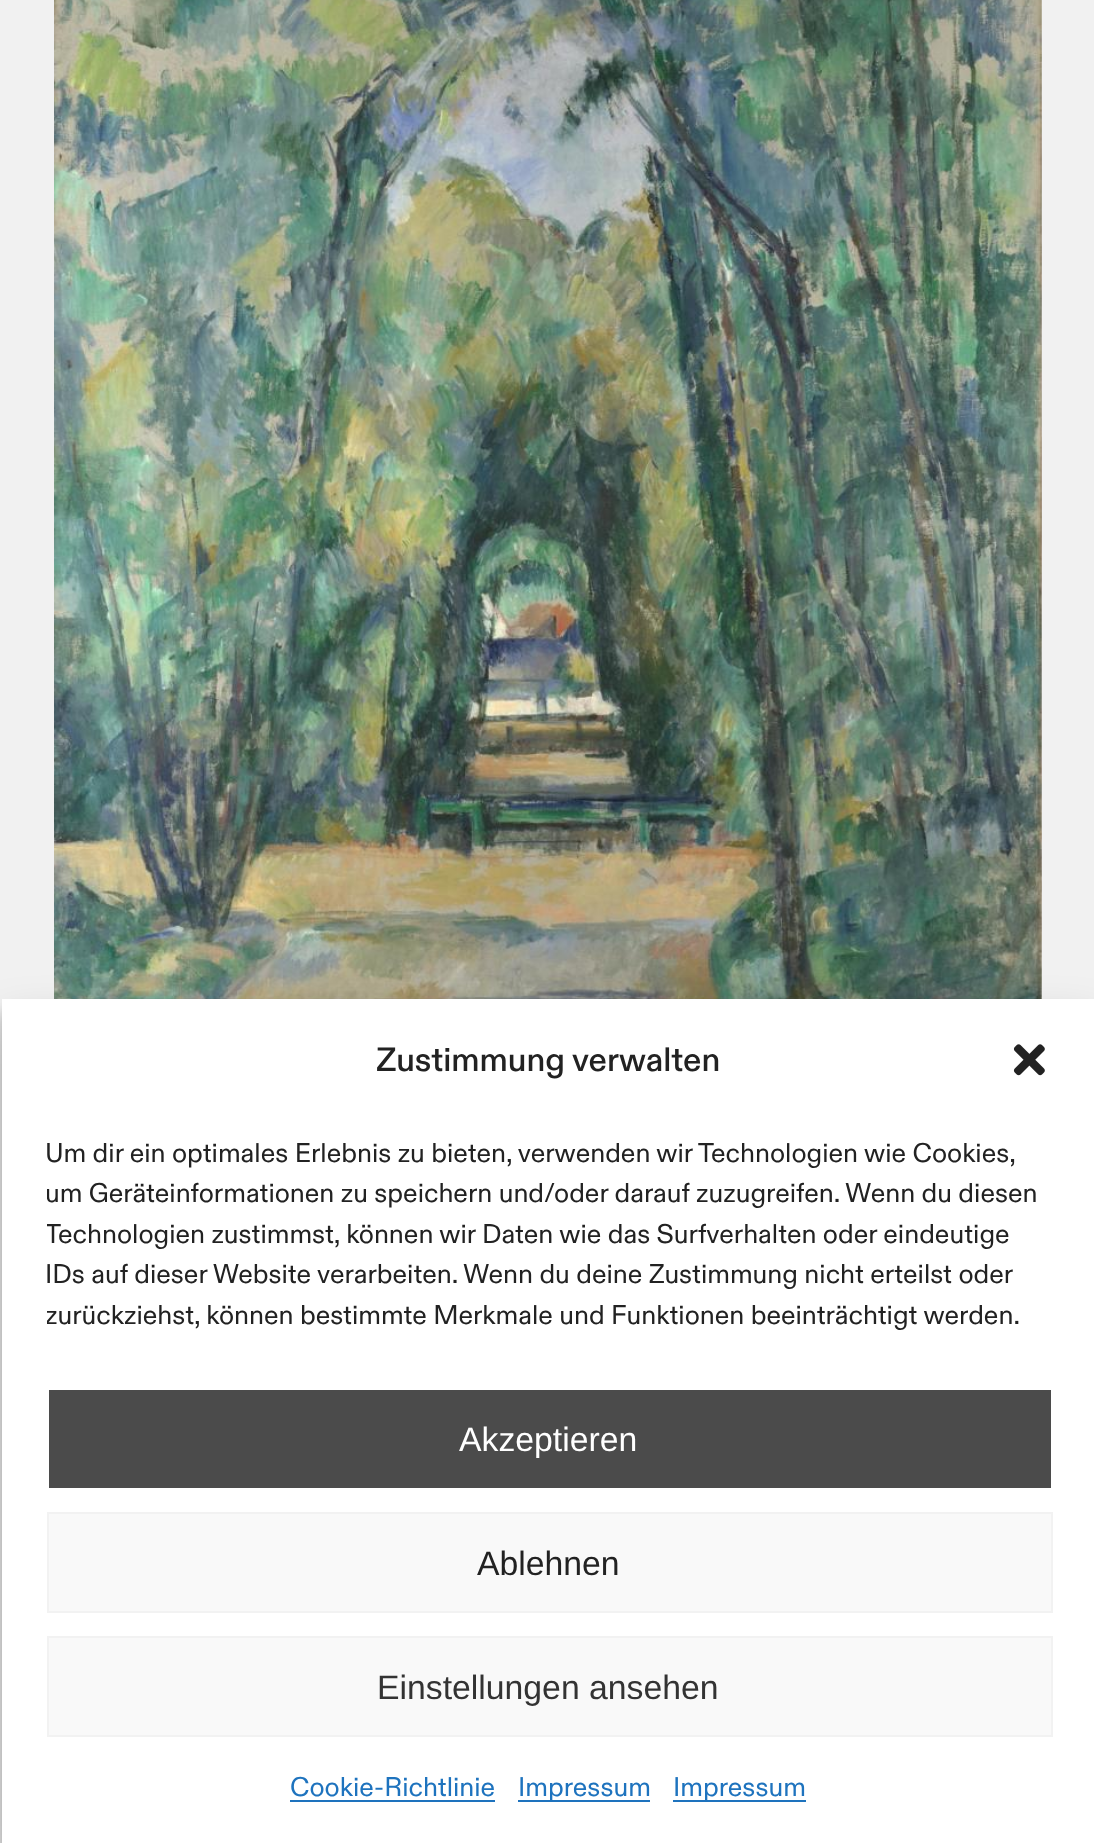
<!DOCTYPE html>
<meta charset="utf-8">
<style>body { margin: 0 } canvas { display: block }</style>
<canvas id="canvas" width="1094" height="1843"></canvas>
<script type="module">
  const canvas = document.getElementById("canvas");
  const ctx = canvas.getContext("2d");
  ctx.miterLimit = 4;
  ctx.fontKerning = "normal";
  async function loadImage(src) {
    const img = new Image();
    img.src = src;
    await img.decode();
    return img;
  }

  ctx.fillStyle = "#f1f1f1";
  ctx.fillRect(0, 0, 1094, 1843);
  ctx.drawImage(await loadImage("img1.png"), 54, 0, 988, 999);
  ctx.fillStyle = "rgba(0, 0, 0, 0.23)";
  ctx.filter = "blur(7px)";
  ctx.beginPath();
  ctx.rect(2, 1013, 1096, 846);
  ctx.fill();
  ctx.filter = "none";
  ctx.fillStyle = "rgba(0, 0, 0, 0.19)";
  ctx.filter = "blur(22.5px)";
  ctx.beginPath();
  ctx.rect(2, 1022, 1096, 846);
  ctx.fill();
  ctx.filter = "none";
  ctx.fillStyle = "#ffffff";
  ctx.fillRect(2, 999, 1092, 844);
  ctx.font = "500 33.75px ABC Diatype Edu";
  ctx.fillStyle = "#222222";
  ctx.fillText("Zustimmung verwalten", 376, 1071);
  ctx.drawImage(await loadImage("img2.png"), 1013, 1044, 32, 32);
  ctx.font = "27px ABC Diatype Edu";
  ctx.fillText("Um dir ein optimales Erlebnis zu bieten, verwenden wir Technologien wie Cookies,", 45, 1162);
  ctx.save();
  ctx.beginPath();
  ctx.rect(47, 1130, 1006, 213);
  ctx.clip();
  ctx.fillText("um Geräteinformationen zu speichern und/oder darauf zuzugreifen. Wenn du diesen", 45, 1202);
  ctx.fillText("Technologien zustimmst, können wir Daten wie das Surfverhalten oder eindeutige", 45, 1243);
  ctx.restore();
  ctx.fillText("IDs auf dieser Website verarbeiten. Wenn du deine Zustimmung nicht erteilst oder", 45, 1283);
  ctx.save();
  ctx.beginPath();
  ctx.rect(47, 1130, 1006, 213);
  ctx.clip();
  ctx.fillText("zurückziehst, können bestimmte Merkmale und Funktionen beeinträchtigt werden.", 45, 1324);
  ctx.restore();
  ctx.fillStyle = "#4b4b4b";
  ctx.fillRect(49, 1390, 1002, 98);
  ctx.font = "33.75px Liberation Sans";
  ctx.fillStyle = "#ffffff";
  ctx.fillText("Akzeptieren", 459, 1451);
  ctx.fillStyle = "#f9f9f9";
  ctx.beginPath();
  ctx.rect(48, 1513, 1004, 99);
  ctx.fill();
  ctx.strokeStyle = "#f2f2f2";
  ctx.lineWidth = 2;
  ctx.stroke();
  ctx.fillStyle = "#222222";
  ctx.fillText("Ablehnen", 477, 1575);
  ctx.fillStyle = "#f9f9f9";
  ctx.beginPath();
  ctx.rect(48, 1637, 1004, 99);
  ctx.fill();
  ctx.stroke();
  ctx.fillStyle = "#333333";
  ctx.fillText("Einstellungen ansehen", 377, 1699);
  ctx.font = "27px ABC Diatype Edu";
  ctx.fillStyle = "#1e73be";
  ctx.fillText("Cookie-Richtlinie", 290, 1796);
  ctx.fillRect(290, 1800, 205, 2);
  ctx.fillRect(518, 1800, 132, 2);
  ctx.fillText("Impressum", 518, 1796);
  ctx.fillRect(673, 1800, 133, 2);
  ctx.fillText("Impressum", 673, 1796);
</script>
